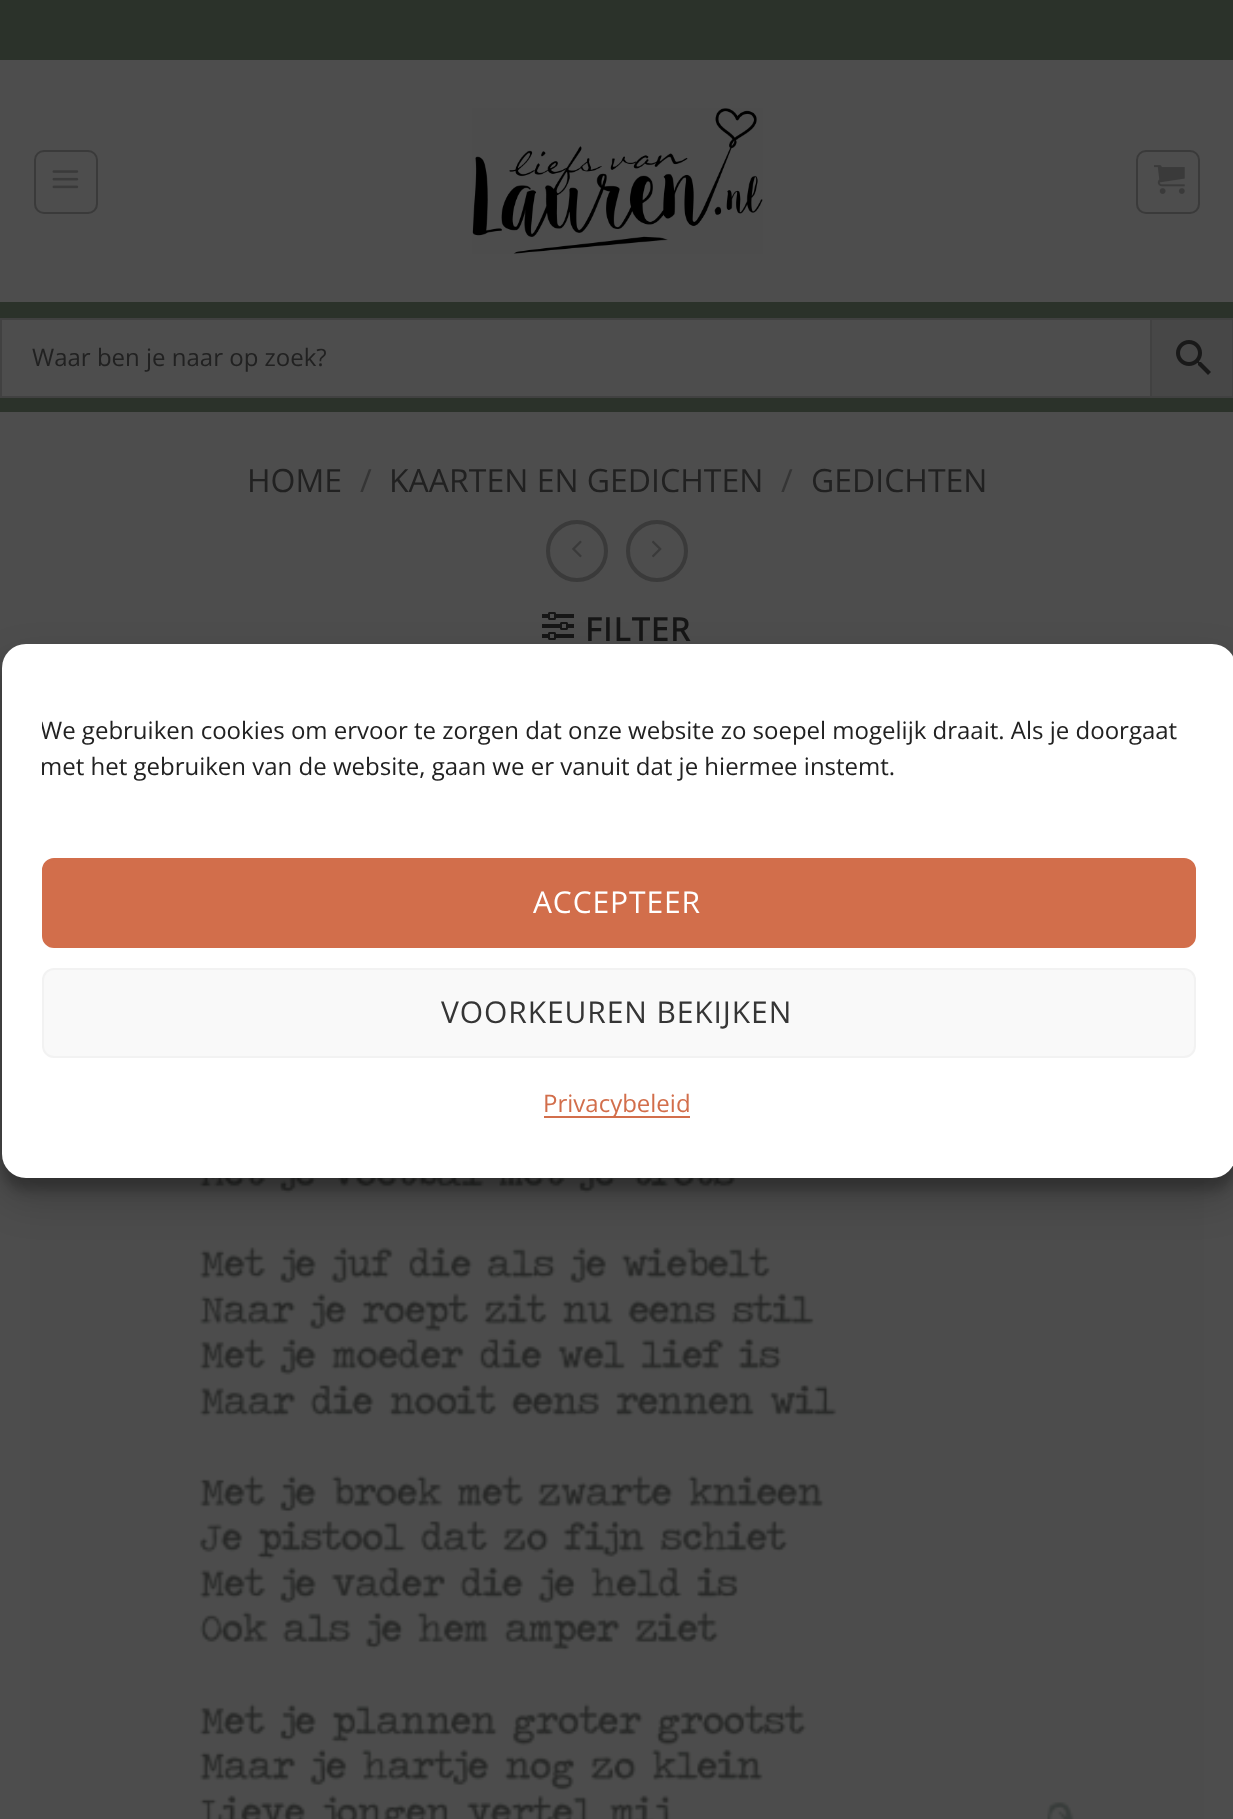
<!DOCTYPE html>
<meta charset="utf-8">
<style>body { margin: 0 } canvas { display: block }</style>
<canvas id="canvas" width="1233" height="1819"></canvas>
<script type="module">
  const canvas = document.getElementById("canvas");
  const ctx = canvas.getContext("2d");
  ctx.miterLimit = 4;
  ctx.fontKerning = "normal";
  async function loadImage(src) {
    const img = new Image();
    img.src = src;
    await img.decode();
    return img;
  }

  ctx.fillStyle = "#4d4d4d";
  ctx.fillRect(0, 0, 1233, 1819);
  ctx.fillStyle = "#2b322a";
  ctx.fillRect(0, 0, 1233, 60);
  ctx.beginPath();
  ctx.roundRect(35, 151, 62, 62, 9);
  ctx.strokeStyle = "#3a3a3a";
  ctx.lineWidth = 2;
  ctx.stroke();
  ctx.drawImage(await loadImage("img1.png"), 52, 170, 27, 19);
  ctx.drawImage(await loadImage("img2.png"), 472, 108, 291, 146);
  ctx.beginPath();
  ctx.roundRect(1137, 151, 62, 62, 9);
  ctx.stroke();
  ctx.drawImage(await loadImage("img3.png"), 1154, 165, 31, 29);
  ctx.fillRect(0, 302, 1233, 110);
  ctx.fillStyle = "#4d4d4d";
  ctx.fillRect(2, 320, 1148, 76);
  ctx.fillStyle = "#474747";
  ctx.beginPath();
  ctx.rect(1151, 319, 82, 78);
  ctx.fill();
  ctx.strokeStyle = "#414141";
  ctx.stroke();
  ctx.strokeRect(1, 319, 1150, 78);
  ctx.font = "24px Open Sans";
  ctx.fillStyle = "#212121";
  ctx.fillText("Waar ben je naar op zoek?", 32, 366);
  ctx.drawImage(await loadImage("img4.png"), 1176, 340, 35, 35);
  ctx.font = "32px Open Sans";
  ctx.fillText("HOME", 247, 492);
  ctx.fillStyle = "#353535";
  ctx.fillText("/", 360, 492);
  ctx.fillStyle = "#212121";
  ctx.fillText("KAARTEN EN GEDICHTEN", 389, 492);
  ctx.fillStyle = "#353535";
  ctx.fillText("/", 781, 492);
  ctx.fillStyle = "#212121";
  ctx.fillText("GEDICHTEN", 811, 492);
  ctx.beginPath();
  ctx.arc(577, 551, 29, 0, Math.PI * 2);
  ctx.strokeStyle = "#3a3a3a";
  ctx.lineWidth = 4;
  ctx.stroke();
  ctx.drawImage(await loadImage("img5.png"), 572, 540, 10, 18);
  ctx.beginPath();
  ctx.arc(657, 551, 29, 0, Math.PI * 2);
  ctx.stroke();
  ctx.drawImage(await loadImage("img6.png"), 652, 540, 10, 18);
  ctx.drawImage(await loadImage("img7.png"), 542, 612, 32, 28);
  ctx.letterSpacing = "1.5px";
  ctx.font = "bold 32px Open Sans";
  ctx.fillStyle = "#161616";
  ctx.fillText("FILTER", 585, 641);
  ctx.drawImage(await loadImage("img8.png"), 30, 1178, 1174, 641);
  ctx.fillStyle = "rgba(0, 0, 0, 0.23)";
  ctx.filter = "blur(6px)";
  ctx.beginPath();
  ctx.roundRect(2, 656, 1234, 534, 24);
  ctx.fill();
  ctx.filter = "none";
  ctx.fillStyle = "rgba(0, 0, 0, 0.19)";
  ctx.filter = "blur(20px)";
  ctx.beginPath();
  ctx.roundRect(2, 664, 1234, 534, 24);
  ctx.fill();
  ctx.filter = "none";
  ctx.fillStyle = "#ffffff";
  ctx.beginPath();
  ctx.roundRect(2, 644, 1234, 534, 24);
  ctx.fill();
  ctx.save();
  ctx.beginPath();
  ctx.rect(42, 714, 1154, 104);
  ctx.clip();
  ctx.letterSpacing = "0px";
  ctx.font = "24px Open Sans";
  ctx.fillStyle = "#212121";
  ctx.fillText("We gebruiken cookies om ervoor te zorgen dat onze website zo soepel mogelijk draait. Als je doorgaat", 40, 739);
  ctx.restore();
  ctx.letterSpacing = "0px";
  ctx.font = "24px Open Sans";
  ctx.fillStyle = "#212121";
  ctx.fillText("met het gebruiken van de website, gaan we er vanuit dat je hiermee instemt.", 40, 775);
  ctx.fillStyle = "#d26e4b";
  ctx.beginPath();
  ctx.roundRect(43, 859, 1152, 88, 11);
  ctx.fill();
  ctx.strokeStyle = "#d26e4b";
  ctx.lineWidth = 2;
  ctx.stroke();
  ctx.letterSpacing = "0.9px";
  ctx.font = "30px Open Sans";
  ctx.fillStyle = "#ffffff";
  ctx.fillText("ACCEPTEER", 533, 913);
  ctx.fillStyle = "#f9f9f9";
  ctx.beginPath();
  ctx.roundRect(43, 969, 1152, 88, 11);
  ctx.fill();
  ctx.strokeStyle = "#f2f2f2";
  ctx.stroke();
  ctx.fillStyle = "#353535";
  ctx.fillText("VOORKEUREN BEKIJKEN", 441, 1023);
  ctx.fillStyle = "#d26e4b";
  ctx.fillRect(544, 1116, 146, 2);
  ctx.letterSpacing = "0px";
  ctx.font = "24px Open Sans";
  ctx.fillText("Privacybeleid", 543, 1112);
</script>
